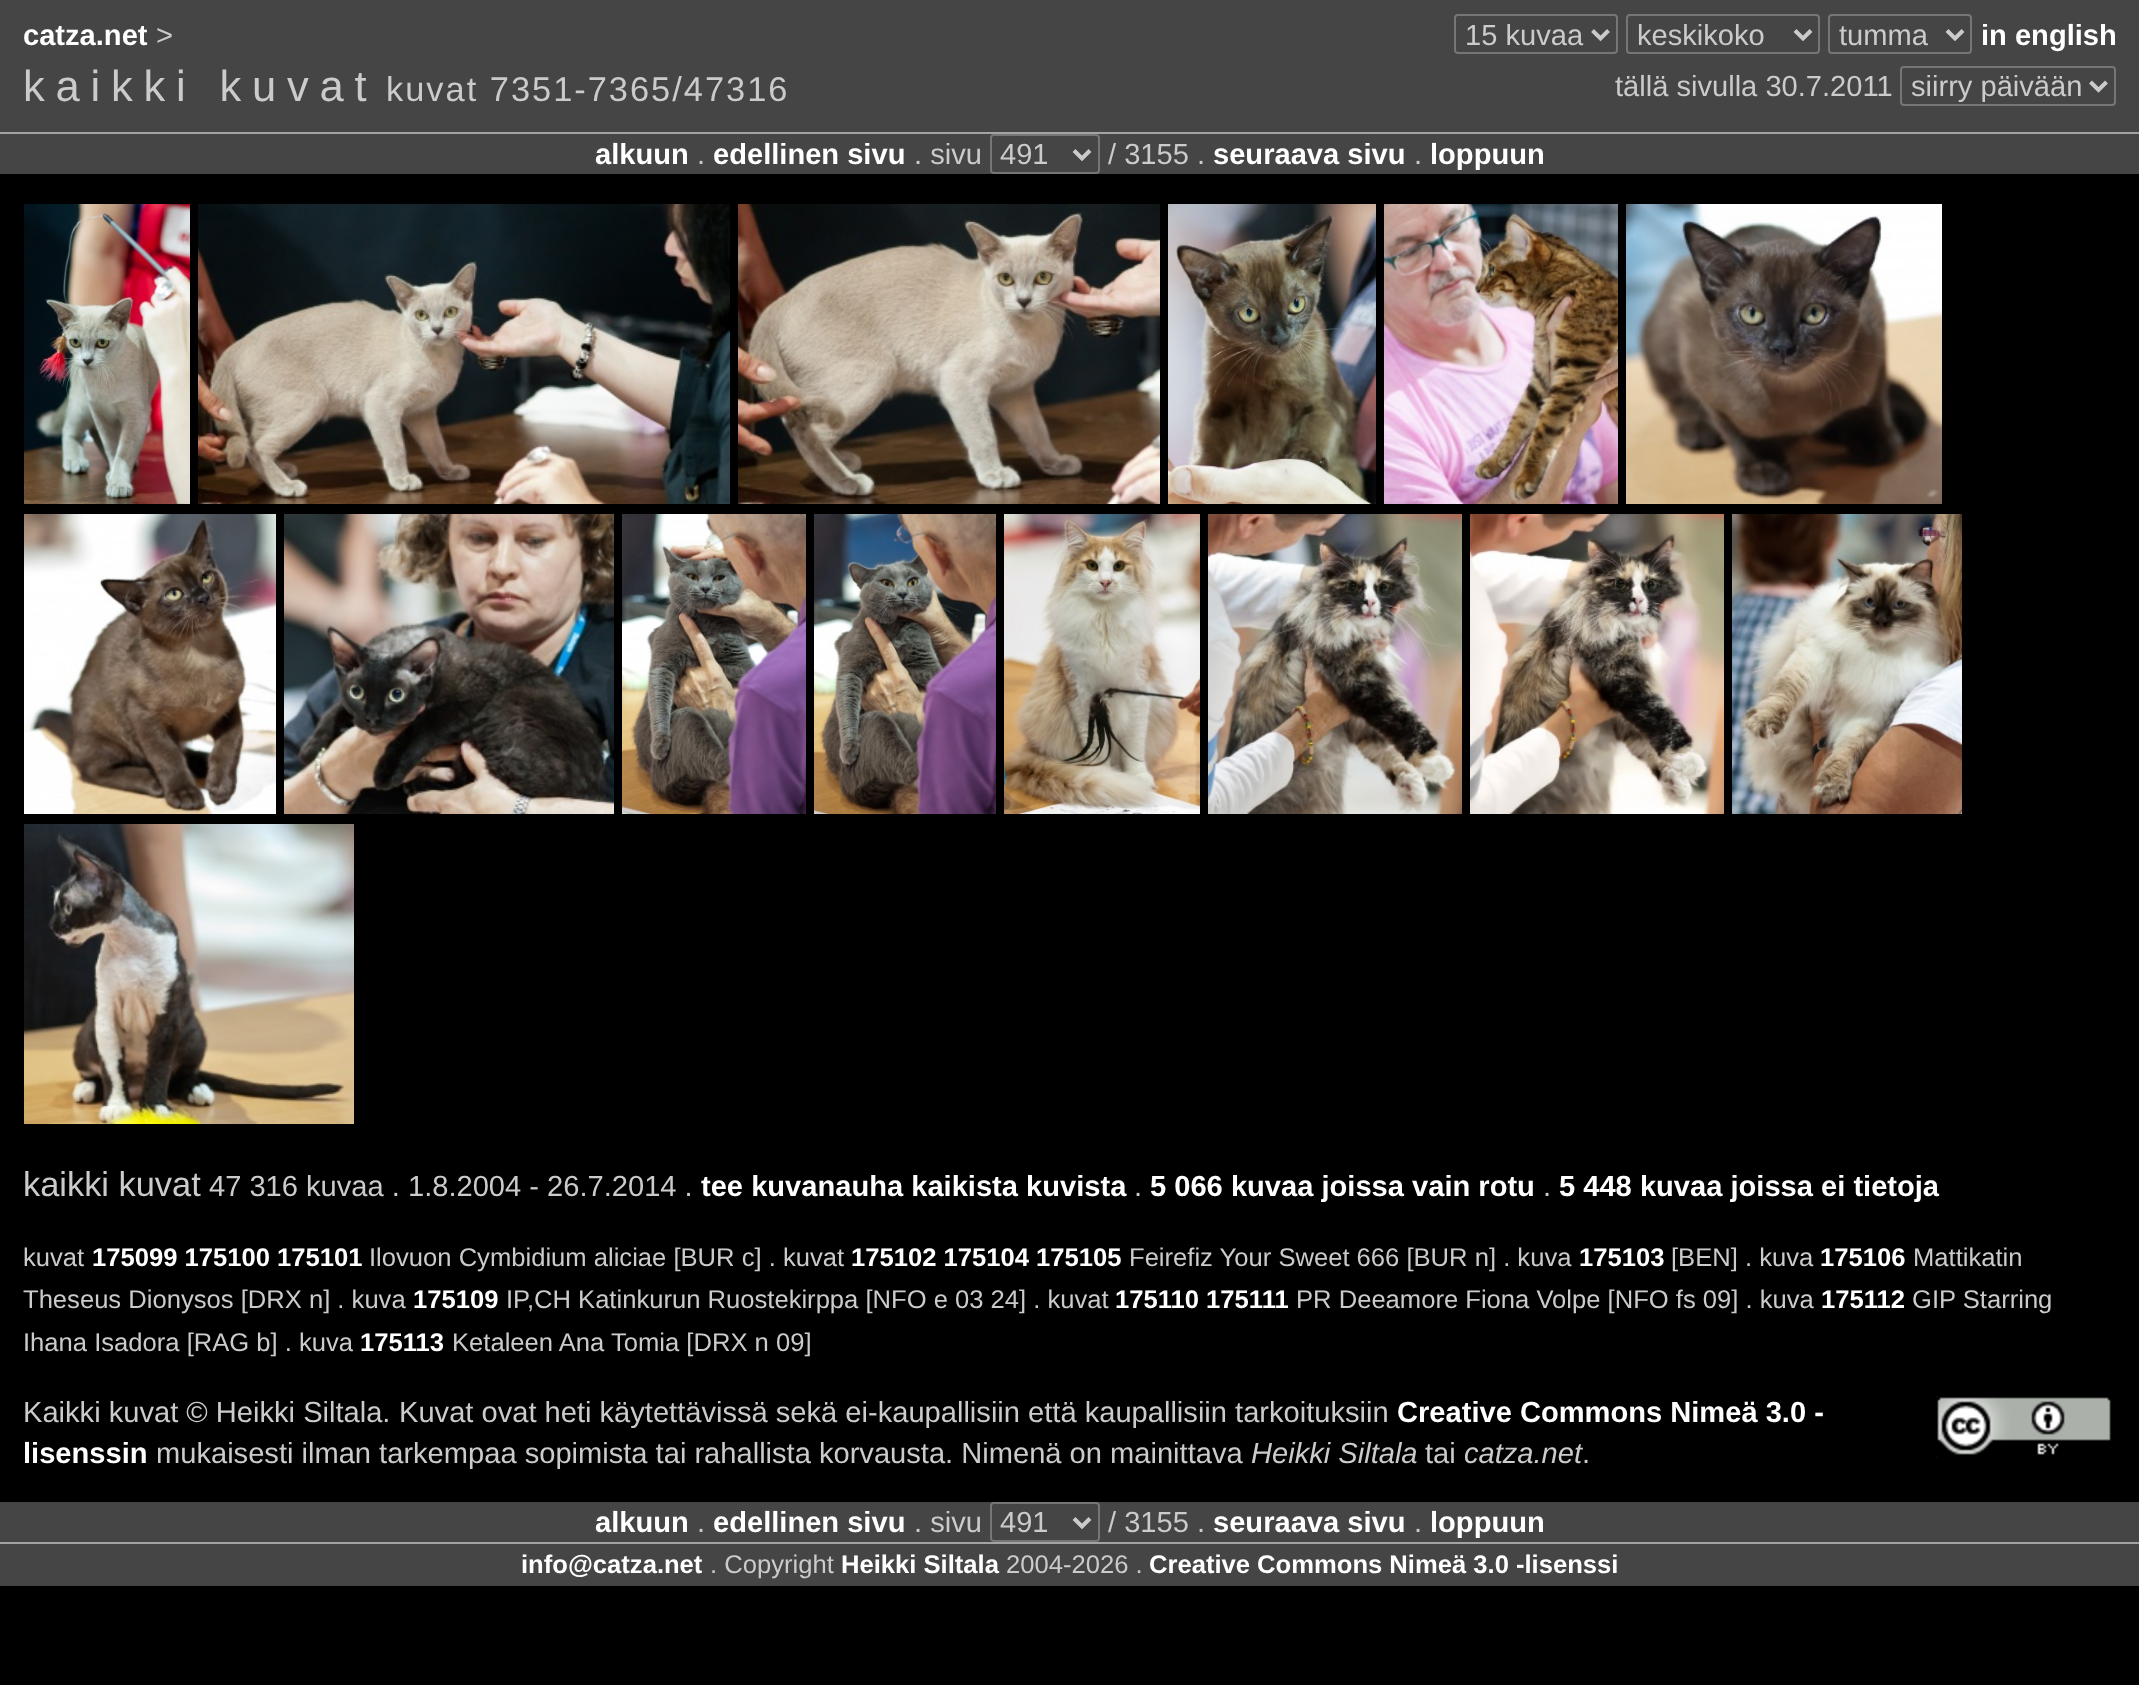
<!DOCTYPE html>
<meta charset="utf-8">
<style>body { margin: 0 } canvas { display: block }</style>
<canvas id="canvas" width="2139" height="1685"></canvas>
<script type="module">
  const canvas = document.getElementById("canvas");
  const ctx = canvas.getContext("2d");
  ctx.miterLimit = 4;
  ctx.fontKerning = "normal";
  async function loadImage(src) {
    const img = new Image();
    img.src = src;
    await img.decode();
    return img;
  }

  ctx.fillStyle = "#000000";
  ctx.fillRect(0, 0, 2139, 1685);
  ctx.fillStyle = "#454545";
  ctx.fillRect(0, 0, 2139, 174);
  ctx.font = "bold 29.1px Liberation Sans";
  ctx.fillStyle = "#ffffff";
  ctx.fillText("catza.net", 23, 45);
  ctx.font = "29.1px Liberation Sans";
  ctx.fillStyle = "#cbcbcb";
  ctx.fillText(">", 156, 45);
  ctx.beginPath();
  ctx.roundRect(1455, 15, 162, 38, 3);
  ctx.strokeStyle = "#767676";
  ctx.lineWidth = 2;
  ctx.stroke();
  ctx.beginPath();
  ctx.moveTo(1592.5, 30.5);
  ctx.lineTo(1600.5, 38.5);
  ctx.lineTo(1608.5, 30.5);
  ctx.strokeStyle = "#cbcbcb";
  ctx.lineWidth = 4;
  ctx.stroke();
  ctx.fillText("15 kuvaa", 1465, 45);
  ctx.beginPath();
  ctx.roundRect(1627, 15, 192, 38, 3);
  ctx.strokeStyle = "#767676";
  ctx.lineWidth = 2;
  ctx.stroke();
  ctx.beginPath();
  ctx.moveTo(1795, 30.5);
  ctx.lineTo(1803, 38.5);
  ctx.lineTo(1811, 30.5);
  ctx.strokeStyle = "#cbcbcb";
  ctx.lineWidth = 4;
  ctx.stroke();
  ctx.fillText("keskikoko", 1637, 45);
  ctx.beginPath();
  ctx.roundRect(1829, 15, 142, 38, 3);
  ctx.strokeStyle = "#767676";
  ctx.lineWidth = 2;
  ctx.stroke();
  ctx.beginPath();
  ctx.moveTo(1947, 30.5);
  ctx.lineTo(1955, 38.5);
  ctx.lineTo(1963, 30.5);
  ctx.strokeStyle = "#cbcbcb";
  ctx.lineWidth = 4;
  ctx.stroke();
  ctx.fillText("tumma", 1839, 45);
  ctx.font = "bold 29.1px Liberation Sans";
  ctx.fillStyle = "#ffffff";
  ctx.fillText("in english", 1981, 45);
  ctx.letterSpacing = "10.8px";
  ctx.font = "43.5px Liberation Sans";
  ctx.fillStyle = "#cbcbcb";
  ctx.fillText("kaikki kuvat", 23, 101);
  ctx.letterSpacing = "2px";
  ctx.font = "34.4px Liberation Sans";
  ctx.fillText("kuvat 7351-7365/47316", 386, 101);
  ctx.letterSpacing = "0px";
  ctx.font = "29.1px Liberation Sans";
  ctx.fillText("tällä sivulla 30.7.2011", 1615, 96);
  ctx.beginPath();
  ctx.roundRect(1901, 67, 214, 38, 3);
  ctx.strokeStyle = "#767676";
  ctx.lineWidth = 2;
  ctx.stroke();
  ctx.beginPath();
  ctx.moveTo(2090.5, 82);
  ctx.lineTo(2098.5, 90);
  ctx.lineTo(2106.5, 82);
  ctx.strokeStyle = "#cbcbcb";
  ctx.lineWidth = 4;
  ctx.stroke();
  ctx.fillText("siirry päivään", 1911, 96);
  ctx.fillStyle = "#a3a3a3";
  ctx.fillRect(0, 132, 2139, 2);
  ctx.font = "bold 29.1px Liberation Sans";
  ctx.fillStyle = "#ffffff";
  ctx.fillText("alkuun", 595, 164);
  ctx.font = "29.1px Liberation Sans";
  ctx.fillStyle = "#cbcbcb";
  ctx.fillText(".", 697, 164);
  ctx.font = "bold 29.1px Liberation Sans";
  ctx.fillStyle = "#ffffff";
  ctx.fillText("edellinen sivu", 713, 164);
  ctx.font = "29.1px Liberation Sans";
  ctx.fillStyle = "#cbcbcb";
  ctx.fillText(". sivu", 914, 164);
  ctx.beginPath();
  ctx.roundRect(991, 135, 108, 38, 3);
  ctx.strokeStyle = "#767676";
  ctx.lineWidth = 2;
  ctx.stroke();
  ctx.beginPath();
  ctx.moveTo(1074, 150.5);
  ctx.lineTo(1082, 158.5);
  ctx.lineTo(1090, 150.5);
  ctx.strokeStyle = "#cbcbcb";
  ctx.lineWidth = 4;
  ctx.stroke();
  ctx.fillText("491", 1000, 164);
  ctx.fillText("/ 3155 .", 1108, 164);
  ctx.font = "bold 29.1px Liberation Sans";
  ctx.fillStyle = "#ffffff";
  ctx.fillText("seuraava sivu", 1213, 164);
  ctx.font = "29.1px Liberation Sans";
  ctx.fillStyle = "#cbcbcb";
  ctx.fillText(".", 1414, 164);
  ctx.font = "bold 29.1px Liberation Sans";
  ctx.fillStyle = "#ffffff";
  ctx.fillText("loppuun", 1430, 164);
  ctx.drawImage(await loadImage("img1.png"), 24, 204, 166, 300);
  ctx.drawImage(await loadImage("img2.png"), 198, 204, 532, 300);
  ctx.drawImage(await loadImage("img3.png"), 738, 204, 422, 300);
  ctx.drawImage(await loadImage("img4.png"), 1168, 204, 208, 300);
  ctx.drawImage(await loadImage("img5.png"), 1384, 204, 234, 300);
  ctx.drawImage(await loadImage("img6.png"), 1626, 204, 316, 300);
  ctx.drawImage(await loadImage("img7.png"), 24, 514, 252, 300);
  ctx.drawImage(await loadImage("img8.png"), 284, 514, 330, 300);
  ctx.drawImage(await loadImage("img9.png"), 622, 514, 184, 300);
  ctx.drawImage(await loadImage("img10.png"), 814, 514, 182, 300);
  ctx.drawImage(await loadImage("img11.png"), 1004, 514, 196, 300);
  ctx.drawImage(await loadImage("img12.png"), 1208, 514, 254, 300);
  ctx.drawImage(await loadImage("img13.png"), 1470, 514, 254, 300);
  ctx.drawImage(await loadImage("img14.png"), 1732, 514, 230, 300);
  ctx.drawImage(await loadImage("img15.png"), 24, 824, 330, 300);
  ctx.font = "34.4px Liberation Sans";
  ctx.fillStyle = "#cbcbcb";
  ctx.fillText("kaikki kuvat", 23, 1196);
  ctx.font = "29.1px Liberation Sans";
  ctx.fillText("47 316 kuvaa . 1.8.2004 - 26.7.2014 .", 209, 1196);
  ctx.font = "bold 29.1px Liberation Sans";
  ctx.fillStyle = "#ffffff";
  ctx.fillText("tee kuvanauha kaikista kuvista", 701, 1196);
  ctx.font = "29.1px Liberation Sans";
  ctx.fillStyle = "#cbcbcb";
  ctx.fillText(".", 1134, 1196);
  ctx.font = "bold 29.1px Liberation Sans";
  ctx.fillStyle = "#ffffff";
  ctx.fillText("5 066 kuvaa joissa vain rotu", 1150, 1196);
  ctx.font = "29.1px Liberation Sans";
  ctx.fillStyle = "#cbcbcb";
  ctx.fillText(".", 1543, 1196);
  ctx.font = "bold 29.1px Liberation Sans";
  ctx.fillStyle = "#ffffff";
  ctx.fillText("5 448 kuvaa joissa ei tietoja", 1559, 1196);
  ctx.font = "25.6px Liberation Sans";
  ctx.fillStyle = "#cbcbcb";
  ctx.fillText("kuvat", 23, 1266);
  ctx.font = "bold 25.6px Liberation Sans";
  ctx.fillStyle = "#ffffff";
  ctx.fillText("175099 175100 175101", 92, 1266);
  ctx.font = "25.6px Liberation Sans";
  ctx.fillStyle = "#cbcbcb";
  ctx.fillText("Ilovuon Cymbidium aliciae [BUR c] . kuvat", 369, 1266);
  ctx.font = "bold 25.6px Liberation Sans";
  ctx.fillStyle = "#ffffff";
  ctx.fillText("175102 175104 175105", 851, 1266);
  ctx.font = "25.6px Liberation Sans";
  ctx.fillStyle = "#cbcbcb";
  ctx.fillText("Feirefiz Your Sweet 666 [BUR n] . kuva", 1129, 1266);
  ctx.font = "bold 25.6px Liberation Sans";
  ctx.fillStyle = "#ffffff";
  ctx.fillText("175103", 1579, 1266);
  ctx.font = "25.6px Liberation Sans";
  ctx.fillStyle = "#cbcbcb";
  ctx.fillText("[BEN] . kuva", 1671, 1266);
  ctx.font = "bold 25.6px Liberation Sans";
  ctx.fillStyle = "#ffffff";
  ctx.fillText("175106", 1820, 1266);
  ctx.font = "25.6px Liberation Sans";
  ctx.fillStyle = "#cbcbcb";
  ctx.fillText("Mattikatin", 1913, 1266);
  ctx.fillText("Theseus Dionysos [DRX n] . kuva", 23, 1308);
  ctx.font = "bold 25.6px Liberation Sans";
  ctx.fillStyle = "#ffffff";
  ctx.fillText("175109", 413, 1308);
  ctx.font = "25.6px Liberation Sans";
  ctx.fillStyle = "#cbcbcb";
  ctx.fillText("IP,CH Katinkurun Ruostekirppa [NFO e 03 24] . kuvat", 506, 1308);
  ctx.font = "bold 25.6px Liberation Sans";
  ctx.fillStyle = "#ffffff";
  ctx.fillText("175110 175111", 1115, 1308);
  ctx.font = "25.6px Liberation Sans";
  ctx.fillStyle = "#cbcbcb";
  ctx.fillText("PR Deeamore Fiona Volpe [NFO fs 09] . kuva", 1296, 1308);
  ctx.font = "bold 25.6px Liberation Sans";
  ctx.fillStyle = "#ffffff";
  ctx.fillText("175112", 1821, 1308);
  ctx.font = "25.6px Liberation Sans";
  ctx.fillStyle = "#cbcbcb";
  ctx.fillText("GIP Starring", 1912, 1308);
  ctx.fillText("Ihana Isadora [RAG b] . kuva", 23, 1351);
  ctx.font = "bold 25.6px Liberation Sans";
  ctx.fillStyle = "#ffffff";
  ctx.fillText("175113", 360, 1351);
  ctx.font = "25.6px Liberation Sans";
  ctx.fillStyle = "#cbcbcb";
  ctx.fillText("Ketaleen Ana Tomia [DRX n 09]", 452, 1351);
  ctx.font = "29.1px Liberation Sans";
  ctx.fillText("Kaikki kuvat © Heikki Siltala.", 23, 1422);
  ctx.fillText("Kuvat ovat heti käytettävissä sekä ei-kaupallisiin että kaupallisiin tarkoituksiin", 399, 1422);
  ctx.font = "bold 29.1px Liberation Sans";
  ctx.fillStyle = "#ffffff";
  ctx.fillText("Creative Commons Nimeä 3.0 -", 1397, 1422);
  ctx.drawImage(await loadImage("img16.png"), 1936, 1396, 175, 62);
  ctx.fillText("lisenssin", 23, 1463);
  ctx.font = "29.1px Liberation Sans";
  ctx.fillStyle = "#cbcbcb";
  ctx.fillText("mukaisesti ilman tarkempaa sopimista tai rahallista korvausta. Nimenä on mainittava", 156, 1463);
  ctx.font = "italic 29.1px Liberation Sans";
  ctx.fillText("Heikki Siltala", 1251, 1463);
  ctx.font = "29.1px Liberation Sans";
  ctx.fillText("tai", 1425, 1463);
  ctx.font = "italic 29.1px Liberation Sans";
  ctx.fillText("catza.net", 1464, 1463);
  ctx.font = "29.1px Liberation Sans";
  ctx.fillText(".", 1582, 1463);
  ctx.fillStyle = "#454545";
  ctx.fillRect(0, 1502, 2139, 84);
  ctx.fillStyle = "#a3a3a3";
  ctx.fillRect(0, 1542, 2139, 2);
  ctx.font = "bold 29.1px Liberation Sans";
  ctx.fillStyle = "#ffffff";
  ctx.fillText("alkuun", 595, 1532);
  ctx.font = "29.1px Liberation Sans";
  ctx.fillStyle = "#cbcbcb";
  ctx.fillText(".", 697, 1532);
  ctx.font = "bold 29.1px Liberation Sans";
  ctx.fillStyle = "#ffffff";
  ctx.fillText("edellinen sivu", 713, 1532);
  ctx.font = "29.1px Liberation Sans";
  ctx.fillStyle = "#cbcbcb";
  ctx.fillText(". sivu", 914, 1532);
  ctx.beginPath();
  ctx.roundRect(991, 1503, 108, 38, 3);
  ctx.strokeStyle = "#767676";
  ctx.lineWidth = 2;
  ctx.stroke();
  ctx.beginPath();
  ctx.moveTo(1074, 1518.5);
  ctx.lineTo(1082, 1526.5);
  ctx.lineTo(1090, 1518.5);
  ctx.strokeStyle = "#cbcbcb";
  ctx.lineWidth = 4;
  ctx.stroke();
  ctx.fillText("491", 1000, 1532);
  ctx.fillText("/ 3155 .", 1108, 1532);
  ctx.font = "bold 29.1px Liberation Sans";
  ctx.fillStyle = "#ffffff";
  ctx.fillText("seuraava sivu", 1213, 1532);
  ctx.font = "29.1px Liberation Sans";
  ctx.fillStyle = "#cbcbcb";
  ctx.fillText(".", 1414, 1532);
  ctx.font = "bold 29.1px Liberation Sans";
  ctx.fillStyle = "#ffffff";
  ctx.fillText("loppuun", 1430, 1532);
  ctx.font = "bold 25.6px Liberation Sans";
  ctx.fillText("info@catza.net", 521, 1573);
  ctx.font = "25.6px Liberation Sans";
  ctx.fillStyle = "#cbcbcb";
  ctx.fillText(". Copyright", 710, 1573);
  ctx.font = "bold 25.6px Liberation Sans";
  ctx.fillStyle = "#ffffff";
  ctx.fillText("Heikki Siltala", 841, 1573);
  ctx.font = "25.6px Liberation Sans";
  ctx.fillStyle = "#cbcbcb";
  ctx.fillText("2004-2026 .", 1006, 1573);
  ctx.font = "bold 25.6px Liberation Sans";
  ctx.fillStyle = "#ffffff";
  ctx.fillText("Creative Commons Nimeä 3.0 -lisenssi", 1149, 1573);
</script>
